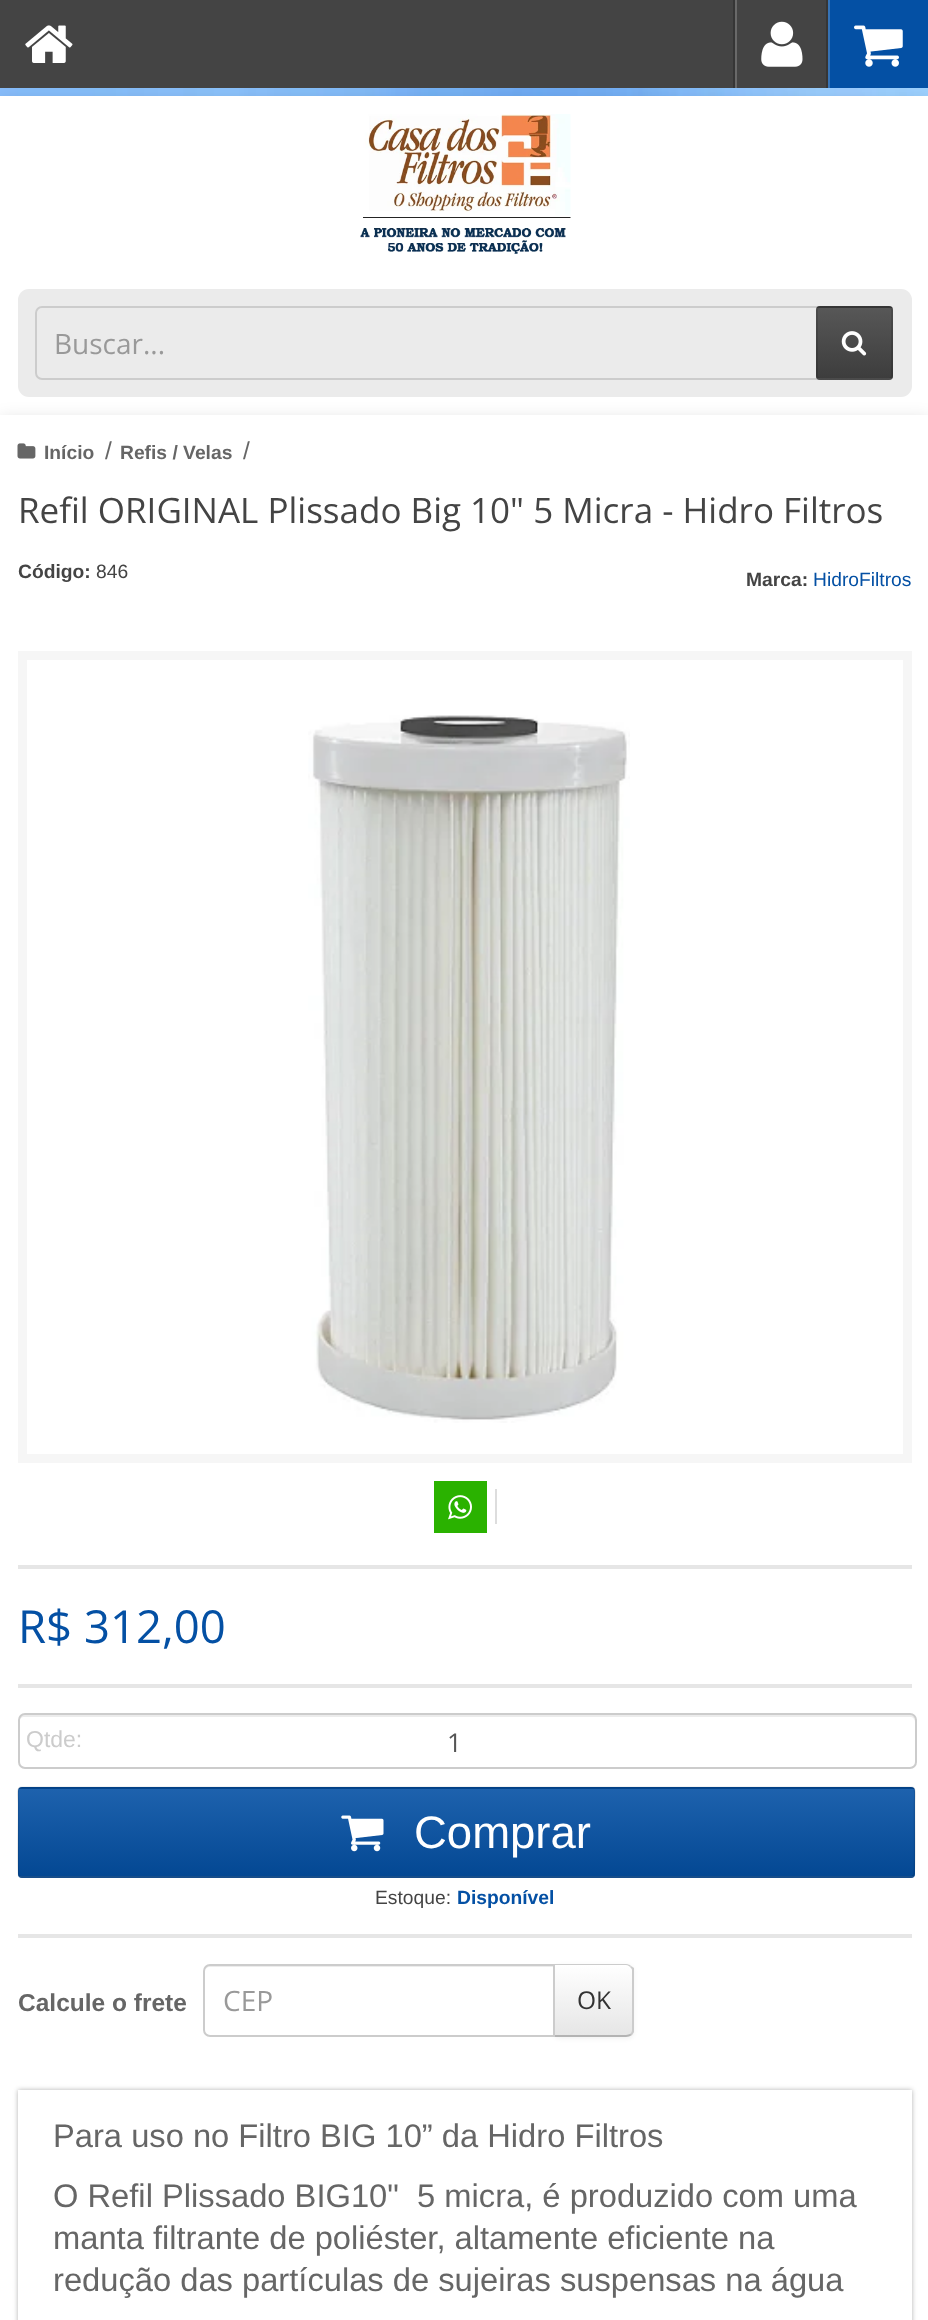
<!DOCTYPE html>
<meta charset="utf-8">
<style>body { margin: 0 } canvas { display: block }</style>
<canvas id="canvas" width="928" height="2320"></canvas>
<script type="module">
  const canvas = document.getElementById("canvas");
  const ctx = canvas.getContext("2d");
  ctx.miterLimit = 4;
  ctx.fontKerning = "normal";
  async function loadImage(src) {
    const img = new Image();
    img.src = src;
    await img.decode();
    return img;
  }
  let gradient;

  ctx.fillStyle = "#ffffff";
  ctx.fillRect(0, 0, 928, 2320);
  ctx.drawImage(await loadImage("img1.png"), 0, 88, 928, 8);
  ctx.fillStyle = "rgba(0, 0, 0, 0.15)";
  ctx.filter = "blur(9px)";
  ctx.beginPath();
  ctx.rect(0, 102, 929, 318);
  ctx.fill();
  ctx.filter = "none";
  ctx.fillStyle = "#444444";
  ctx.fillRect(0, 0, 826, 88);
  ctx.drawImage(await loadImage("img2.png"), 25, 25, 48, 38);
  ctx.fillStyle = "#363636";
  ctx.fillRect(733, 0, 2, 88);
  ctx.fillRect(826, 0, 2, 88);
  ctx.fillStyle = "#696969";
  ctx.fillRect(735, 0, 2, 88);
  ctx.drawImage(await loadImage("img3.png"), 761, 21, 42, 46);
  ctx.fillStyle = "#0450a4";
  ctx.fillRect(830, 0, 98, 88);
  ctx.fillStyle = "#3673b6";
  ctx.fillRect(828, 0, 2, 88);
  ctx.drawImage(await loadImage("img4.png"), 854, 25, 49, 42);
  ctx.fillStyle = "#ffffff";
  ctx.fillRect(0, 96, 928, 319);
  ctx.drawImage(await loadImage("img5.png"), 360, 114, 211, 140);
  ctx.fillStyle = "rgba(0, 0, 0, 0.15)";
  ctx.filter = "blur(9px)";
  ctx.beginPath();
  ctx.rect(0, 420, 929, 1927);
  ctx.fill();
  ctx.filter = "none";
  ctx.fillStyle = "#ebebeb";
  ctx.beginPath();
  ctx.roundRect(18, 289, 894, 108, 11);
  ctx.fill();
  ctx.beginPath();
  ctx.roundRect(36, 307, 810, 72, 6);
  ctx.strokeStyle = "#cccccc";
  ctx.lineWidth = 2;
  ctx.stroke();
  ctx.font = "28px Open Sans";
  ctx.fillStyle = "#999999";
  ctx.fillText("Buscar...", 54, 354);
  ctx.fillStyle = "#444444";
  ctx.beginPath();
  ctx.roundRect(816, 306, 77, 74, 4);
  ctx.fill();
  ctx.save();
  ctx.beginPath();
  ctx.roundRect(816, 306, 77, 74, 4);
  ctx.clip();
  gradient = ctx.createLinearGradient(854, 238, 854, 308);
  gradient.addColorStop(0, "rgba(255, 255, 255, 0.1)");
  gradient.addColorStop(1, "rgba(0, 0, 0, 0.1)");
  ctx.fillStyle = gradient;
  ctx.fillRect(816, 306, 77, 2);
  ctx.restore();
  gradient = ctx.createLinearGradient(854, 308, 854, 378);
  gradient.addColorStop(0, "rgba(255, 255, 255, 0.1)");
  gradient.addColorStop(1, "rgba(0, 0, 0, 0.1)");
  ctx.fillStyle = gradient;
  ctx.fillRect(816, 308, 77, 70);
  ctx.save();
  ctx.beginPath();
  ctx.roundRect(816, 306, 77, 74, 4);
  ctx.clip();
  gradient = ctx.createLinearGradient(854, 378, 854, 448);
  gradient.addColorStop(0, "rgba(255, 255, 255, 0.1)");
  gradient.addColorStop(1, "rgba(0, 0, 0, 0.1)");
  ctx.fillStyle = gradient;
  ctx.fillRect(816, 378, 77, 2);
  ctx.restore();
  ctx.beginPath();
  ctx.roundRect(817, 307, 75, 72, 3);
  ctx.strokeStyle = "rgba(0, 0, 0, 0.13)";
  ctx.stroke();
  ctx.drawImage(await loadImage("img6.png"), 841, 331, 26, 25);
  ctx.fillStyle = "#ffffff";
  ctx.fillRect(0, 415, 928, 1905);
  ctx.drawImage(await loadImage("img7.png"), 17, 443, 19, 16);
  ctx.font = "bold 19.25px Liberation Sans";
  ctx.fillStyle = "#666666";
  ctx.fillText("Início", 44, 459);
  ctx.font = "24.5px Liberation Sans";
  ctx.fillText("/", 105, 459);
  ctx.font = "bold 19.25px Liberation Sans";
  ctx.fillText("Refis / Velas", 120, 459);
  ctx.font = "24.5px Liberation Sans";
  ctx.fillText("/", 243, 459);
  ctx.font = "35px Open Sans";
  ctx.fillStyle = "#444444";
  ctx.fillText("Refil ORIGINAL Plissado Big 10\" 5 Micra - Hidro Filtros", 18, 523);
  ctx.font = "bold 19.25px Liberation Sans";
  ctx.fillText("Código:", 18, 578);
  ctx.font = "19.25px Liberation Sans";
  ctx.fillText("846", 96, 578);
  ctx.font = "bold 19.25px Liberation Sans";
  ctx.fillText("Marca:", 746, 586);
  ctx.font = "19.25px Liberation Sans";
  ctx.fillStyle = "#0450a4";
  ctx.fillText("HidroFiltros", 813, 586);
  ctx.strokeStyle = "#f6f6f6";
  ctx.lineWidth = 9;
  ctx.strokeRect(22.5, 655.5, 885, 803);
  ctx.drawImage(await loadImage("img8.png"), 308, 715, 322, 708);
  ctx.fillStyle = "#e6e6e6";
  ctx.fillRect(18, 1565, 894, 4);
  ctx.fillStyle = "#2ab200";
  ctx.fillRect(434, 1481, 53, 52);
  ctx.drawImage(await loadImage("img9.png"), 448, 1495, 24, 25);
  ctx.fillStyle = "#dddddd";
  ctx.fillRect(495, 1489, 2, 35);
  ctx.fillStyle = "#e6e6e6";
  ctx.fillRect(18, 1934, 894, 4);
  ctx.fillRect(18, 1684, 894, 4);
  ctx.font = "45.5px Open Sans";
  ctx.fillStyle = "#0450a4";
  ctx.fillText("R$ 312,00", 18, 1643);
  ctx.fillStyle = "#ececec";
  ctx.beginPath();
  ctx.moveTo(24, 1717);
  ctx.lineTo(910, 1717);
  ctx.bezierCurveTo(913, 1717, 915, 1719, 915, 1722);
  ctx.lineTo(915, 1720);
  ctx.bezierCurveTo(915, 1717, 913, 1715, 910, 1715);
  ctx.lineTo(24, 1715);
  ctx.bezierCurveTo(21, 1715, 19, 1717, 19, 1720);
  ctx.lineTo(19, 1722);
  ctx.bezierCurveTo(19, 1719, 22, 1717, 24, 1717);
  ctx.closePath();
  ctx.fill();
  ctx.beginPath();
  ctx.roundRect(19, 1714, 897, 54, 6);
  ctx.strokeStyle = "#cccccc";
  ctx.lineWidth = 2;
  ctx.stroke();
  ctx.font = "23px Liberation Sans";
  ctx.fillStyle = "#cccccc";
  ctx.fillText("Qtde:", 26, 1747);
  ctx.font = "26px Open Sans";
  ctx.fillStyle = "#555555";
  ctx.fillText("1", 447, 1752);
  ctx.fillStyle = "#0450a4";
  ctx.beginPath();
  ctx.roundRect(18, 1787, 897, 91, 4);
  ctx.fill();
  ctx.save();
  ctx.beginPath();
  ctx.roundRect(18, 1787, 897, 91, 4);
  ctx.clip();
  gradient = ctx.createLinearGradient(466, 1701, 466, 1789);
  gradient.addColorStop(0, "rgba(255, 255, 255, 0.1)");
  gradient.addColorStop(1, "rgba(0, 0, 0, 0.1)");
  ctx.fillStyle = gradient;
  ctx.fillRect(18, 1787, 897, 2);
  ctx.restore();
  gradient = ctx.createLinearGradient(466, 1789, 466, 1876);
  gradient.addColorStop(0, "rgba(255, 255, 255, 0.1)");
  gradient.addColorStop(1, "rgba(0, 0, 0, 0.1)");
  ctx.fillStyle = gradient;
  ctx.fillRect(18, 1789, 897, 87);
  ctx.save();
  ctx.beginPath();
  ctx.roundRect(18, 1787, 897, 91, 4);
  ctx.clip();
  gradient = ctx.createLinearGradient(466, 1876, 466, 1964);
  gradient.addColorStop(0, "rgba(255, 255, 255, 0.1)");
  gradient.addColorStop(1, "rgba(0, 0, 0, 0.1)");
  ctx.fillStyle = gradient;
  ctx.fillRect(18, 1876, 897, 2);
  ctx.restore();
  ctx.beginPath();
  ctx.moveTo(913.5, 1876);
  ctx.lineTo(912, 1877);
  ctx.lineTo(21, 1877);
  ctx.lineTo(19, 1876);
  ctx.strokeStyle = "rgba(0, 0, 0, 0.2)";
  ctx.lineWidth = 1.8;
  ctx.stroke();
  ctx.beginPath();
  ctx.moveTo(19, 1876);
  ctx.bezierCurveTo(17, 1874, 18.5, 1825, 18.5, 1818);
  ctx.lineTo(18.5, 1804);
  ctx.bezierCurveTo(18.5, 1799, 16, 1787.5, 21, 1787.5);
  ctx.lineTo(912, 1787.5);
  ctx.bezierCurveTo(916.5, 1787.5, 914.5, 1799, 914.5, 1804);
  ctx.lineTo(914.5, 1818);
  ctx.bezierCurveTo(914.5, 1825, 915.5, 1874, 913.5, 1876);
  ctx.strokeStyle = "rgba(0, 0, 0, 0.1)";
  ctx.stroke();
  ctx.drawImage(await loadImage("img10.png"), 341, 1815, 43, 37);
  ctx.font = "45.5px Liberation Sans";
  ctx.fillStyle = "#ffffff";
  ctx.fillText("Comprar", 414, 1848);
  ctx.font = "19.25px Liberation Sans";
  ctx.fillStyle = "#444444";
  ctx.fillText("Estoque:", 375, 1904);
  ctx.font = "bold 19.25px Liberation Sans";
  ctx.fillStyle = "#0450a4";
  ctx.fillText("Disponível", 457, 1904);
  ctx.font = "bold 24.5px Liberation Sans";
  ctx.fillStyle = "#666666";
  ctx.fillText("Calcule o frete", 18, 2011);
  ctx.fillStyle = "rgba(0, 0, 0, 0.05)";
  ctx.filter = "blur(2px)";
  ctx.beginPath();
  ctx.roundRect(553, 1965, 81, 74, 7);
  ctx.fill();
  ctx.filter = "none";
  ctx.fillStyle = "#f5f5f5";
  ctx.beginPath();
  ctx.roundRect(553, 1964, 81, 73, [0, 7, 7, 0]);
  ctx.fill();
  ctx.save();
  ctx.beginPath();
  ctx.roundRect(553, 1964, 81, 73, [0, 7, 7, 0]);
  ctx.clip();
  gradient = ctx.createLinearGradient(593, 1965, 593, 2035);
  gradient.addColorStop(0, "#ffffff");
  gradient.addColorStop(1, "#e6e6e6");
  ctx.fillStyle = gradient;
  ctx.fillRect(555, 1965, 79, 70);
  ctx.restore();
  ctx.fillStyle = "#cccccc";
  ctx.beginPath();
  ctx.moveTo(555, 1965);
  ctx.lineTo(626, 1965);
  ctx.bezierCurveTo(628, 1965, 629, 1966, 630, 1967);
  ctx.lineTo(631, 1966);
  ctx.bezierCurveTo(630, 1965, 628, 1964, 626, 1964);
  ctx.lineTo(554, 1964);
  ctx.lineTo(555, 1966);
  ctx.closePath();
  ctx.fill();
  ctx.beginPath();
  ctx.moveTo(631, 1966);
  ctx.lineTo(634, 1968);
  ctx.lineTo(634, 2032);
  ctx.lineTo(632, 2035);
  ctx.lineTo(630, 2034);
  ctx.bezierCurveTo(631, 2033, 632, 2032, 632, 2030);
  ctx.lineTo(632, 1970);
  ctx.bezierCurveTo(632, 1969, 631, 1968, 630, 1967);
  ctx.closePath();
  ctx.fill();
  ctx.fillStyle = "#b3b3b3";
  ctx.beginPath();
  ctx.moveTo(626, 2037);
  ctx.bezierCurveTo(628, 2037, 630, 2036, 632, 2035);
  ctx.lineTo(630, 2034);
  ctx.bezierCurveTo(629, 2034, 628, 2035, 626, 2035);
  ctx.lineTo(555, 2035);
  ctx.lineTo(553, 2037);
  ctx.closePath();
  ctx.fill();
  ctx.fillStyle = "#ffffff";
  ctx.beginPath();
  ctx.roundRect(203, 1964, 352, 73, [7, 0, 0, 7]);
  ctx.fill();
  ctx.fillStyle = "#ececec";
  ctx.beginPath();
  ctx.moveTo(210, 1967);
  ctx.lineTo(553, 1967);
  ctx.lineTo(553, 1965);
  ctx.lineTo(210, 1965);
  ctx.bezierCurveTo(206, 1965, 205, 1969, 205, 1972);
  ctx.bezierCurveTo(205, 1969, 207, 1967, 210, 1967);
  ctx.closePath();
  ctx.fill();
  ctx.beginPath();
  ctx.roundRect(204, 1965, 350, 71, [6, 0, 0, 6]);
  ctx.strokeStyle = "#cccccc";
  ctx.lineWidth = 2;
  ctx.stroke();
  ctx.font = "28px Open Sans";
  ctx.fillStyle = "#999999";
  ctx.fillText("CEP", 223, 2011);
  ctx.font = "24.5px Open Sans";
  ctx.fillStyle = "#333333";
  ctx.fillText("OK", 577, 2009);
  ctx.save();
  ctx.beginPath();
  ctx.moveTo(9, 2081);
  ctx.lineTo(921, 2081);
  ctx.lineTo(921, 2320);
  ctx.lineTo(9, 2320);
  ctx.closePath();
  ctx.moveTo(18, 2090);
  ctx.lineTo(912, 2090);
  ctx.lineTo(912, 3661);
  ctx.lineTo(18, 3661);
  ctx.closePath();
  ctx.clip("evenodd");
  ctx.fillStyle = "rgba(0, 0, 0, 0.3)";
  ctx.filter = "blur(2.5px)";
  ctx.beginPath();
  ctx.rect(18, 2090, 894, 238);
  ctx.fill();
  ctx.filter = "none";
  ctx.restore();
  ctx.font = "32.7px Liberation Sans";
  ctx.fillStyle = "#666666";
  ctx.fillText("Para uso no Filtro BIG 10” da Hidro Filtros", 53, 2147);
  ctx.fillText("O Refil Plissado BIG10\"  5 micra, é produzido com uma", 53, 2207);
  ctx.fillText("manta filtrante de poliéster, altamente eficiente na", 53, 2249);
  ctx.fillText("redução das partículas de sujeiras suspensas na água", 53, 2291);
</script>
